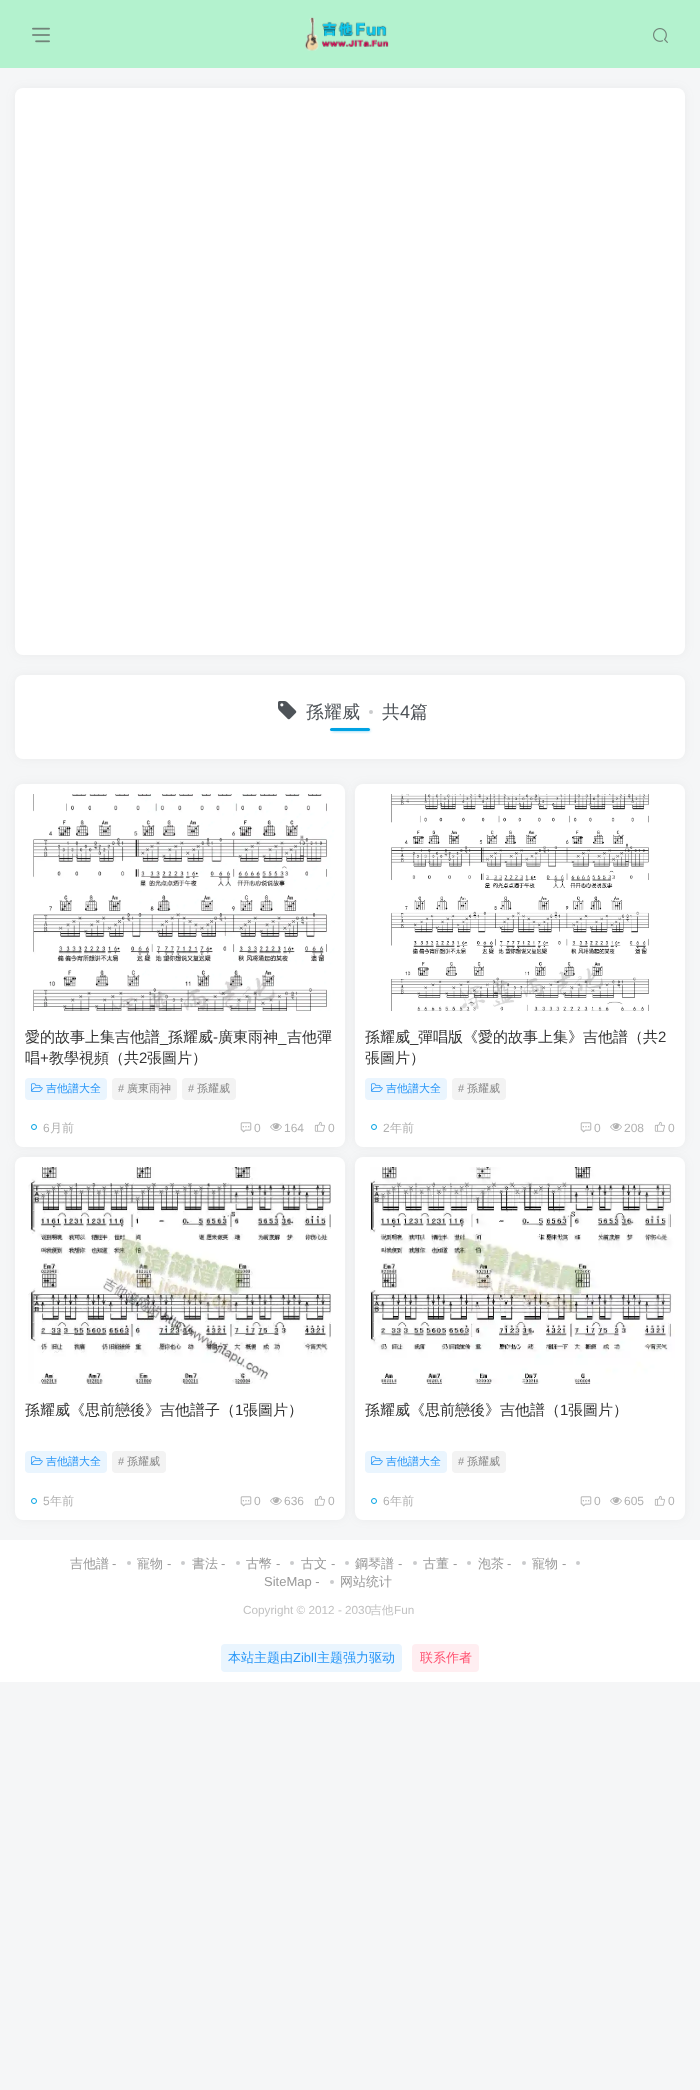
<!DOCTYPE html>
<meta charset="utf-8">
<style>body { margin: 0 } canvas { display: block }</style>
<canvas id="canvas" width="700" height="2090"></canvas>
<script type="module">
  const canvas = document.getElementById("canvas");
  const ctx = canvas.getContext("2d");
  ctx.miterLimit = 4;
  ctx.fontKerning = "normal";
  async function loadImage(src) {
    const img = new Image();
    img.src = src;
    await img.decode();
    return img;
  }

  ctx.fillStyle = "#f5f6f7";
  ctx.fillRect(0, 0, 700, 2090);
  ctx.fillStyle = "#b3f2ce";
  ctx.fillRect(0, 0, 700, 68);
  ctx.drawImage(await loadImage("img1.png"), 32, 27, 18, 16);
  ctx.drawImage(await loadImage("img2.png"), 305, 17, 84, 34);
  ctx.drawImage(await loadImage("img3.png"), 653, 28, 15, 15);
  ctx.fillStyle = "rgba(116, 116, 116, 0.08)";
  ctx.filter = "blur(5px)";
  ctx.beginPath();
  ctx.roundRect(15, 88, 670, 567, 8);
  ctx.fill();
  ctx.filter = "none";
  ctx.fillStyle = "#ffffff";
  ctx.beginPath();
  ctx.roundRect(15, 88, 670, 567, 8);
  ctx.fill();
  ctx.fillStyle = "rgba(116, 116, 116, 0.08)";
  ctx.filter = "blur(5px)";
  ctx.beginPath();
  ctx.roundRect(15, 675, 670, 84, 8);
  ctx.fill();
  ctx.filter = "none";
  ctx.fillStyle = "#ffffff";
  ctx.beginPath();
  ctx.roundRect(15, 675, 670, 84, 8);
  ctx.fill();
  ctx.drawImage(await loadImage("img4.png"), 278, 701, 19, 19);
  ctx.font = "500 18px WenQuanYi Zen Hei";
  ctx.fillStyle = "#4e5358";
  ctx.fillText("孫耀威", 306, 718);
  ctx.fillStyle = "#cacbcd";
  ctx.beginPath();
  ctx.arc(371, 712, 2, 0, Math.PI * 2);
  ctx.fill();
  ctx.fillStyle = "#4e5358";
  ctx.fillText("共", 382, 718);
  ctx.font = "18px Liberation Sans";
  ctx.fillText("4", 400, 718);
  ctx.font = "500 18px WenQuanYi Zen Hei";
  ctx.fillText("篇", 410, 718);
  ctx.fillStyle = "#00a2e3";
  ctx.filter = "blur(1.5px)";
  ctx.beginPath();
  ctx.roundRect(332, 730, 38, 1, 0.5);
  ctx.fill();
  ctx.filter = "none";
  ctx.beginPath();
  ctx.roundRect(330, 728, 40, 3, 1.5);
  ctx.fill();
  ctx.fillStyle = "rgba(116, 116, 116, 0.08)";
  ctx.filter = "blur(5px)";
  ctx.beginPath();
  ctx.roundRect(15, 784, 330, 363, 8);
  ctx.fill();
  ctx.filter = "none";
  ctx.fillStyle = "#ffffff";
  ctx.beginPath();
  ctx.roundRect(15, 784, 330, 363, 8);
  ctx.fill();
  ctx.drawImage(await loadImage("img5.png"), 33, 794, 302, 217);
  ctx.font = "500 15px WenQuanYi Zen Hei";
  ctx.fillStyle = "#333333";
  ctx.fillText("愛的故事上集吉他譜", 25, 1042);
  ctx.fillText("孫耀威", 168, 1042);
  ctx.font = "15px Liberation Sans";
  ctx.fillText("-", 213, 1042);
  ctx.font = "500 15px WenQuanYi Zen Hei";
  ctx.fillText("廣東雨神", 218, 1042);
  ctx.fillText("吉他彈", 287, 1042);
  ctx.font = "15px Liberation Sans";
  ctx.fillText("_", 160, 1042);
  ctx.fillText("_", 278, 1042);
  ctx.font = "500 15px WenQuanYi Zen Hei";
  ctx.fillText("唱", 25, 1063);
  ctx.font = "15px Liberation Sans";
  ctx.fillText("+", 40, 1063);
  ctx.font = "500 15px WenQuanYi Zen Hei";
  ctx.fillText("教學視頻（共", 49, 1063);
  ctx.font = "15px Liberation Sans";
  ctx.fillText("2", 139, 1063);
  ctx.font = "500 15px WenQuanYi Zen Hei";
  ctx.fillText("張圖片）", 147, 1063);
  ctx.fillStyle = "#eaf5fe";
  ctx.beginPath();
  ctx.roundRect(25, 1078, 82, 22, 4);
  ctx.fill();
  ctx.drawImage(await loadImage("img6.png"), 31, 1083, 12, 9);
  ctx.font = "500 11px WenQuanYi Zen Hei";
  ctx.fillStyle = "#2997f7";
  ctx.fillText("吉他譜大全", 46, 1092);
  ctx.fillStyle = "#f3f3f3";
  ctx.beginPath();
  ctx.roundRect(112, 1078, 65, 22, 4);
  ctx.fill();
  ctx.font = "11px Liberation Sans";
  ctx.fillStyle = "#888888";
  ctx.fillText("#", 118, 1092);
  ctx.font = "500 11px WenQuanYi Zen Hei";
  ctx.fillText("廣東雨神", 127, 1092);
  ctx.fillStyle = "#f3f3f3";
  ctx.beginPath();
  ctx.roundRect(182, 1078, 54, 22, 4);
  ctx.fill();
  ctx.font = "11px Liberation Sans";
  ctx.fillStyle = "#888888";
  ctx.fillText("#", 188, 1092);
  ctx.font = "500 11px WenQuanYi Zen Hei";
  ctx.fillText("孫耀威", 197, 1092);
  ctx.beginPath();
  ctx.arc(34, 1127, 2.5, 0, Math.PI * 2);
  ctx.strokeStyle = "#00a2e3";
  ctx.stroke();
  ctx.font = "12px Liberation Sans";
  ctx.fillStyle = "#b1b1b1";
  ctx.fillText("6", 43, 1132);
  ctx.font = "500 12px WenQuanYi Zen Hei";
  ctx.fillText("月前", 50, 1132);
  ctx.drawImage(await loadImage("img7.png"), 240, 1122, 12, 11);
  ctx.font = "12px Liberation Sans";
  ctx.fillText("0", 254, 1132);
  ctx.drawImage(await loadImage("img8.png"), 270, 1123, 12, 8);
  ctx.fillText("164", 284, 1132);
  ctx.drawImage(await loadImage("img9.png"), 314, 1121, 11, 11);
  ctx.fillText("0", 328, 1132);
  ctx.fillStyle = "rgba(116, 116, 116, 0.08)";
  ctx.filter = "blur(5px)";
  ctx.beginPath();
  ctx.roundRect(355, 784, 330, 363, 8);
  ctx.fill();
  ctx.filter = "none";
  ctx.fillStyle = "#ffffff";
  ctx.beginPath();
  ctx.roundRect(355, 784, 330, 363, 8);
  ctx.fill();
  ctx.drawImage(await loadImage("img10.png"), 391, 794, 258, 217);
  ctx.font = "500 15px WenQuanYi Zen Hei";
  ctx.fillStyle = "#333333";
  ctx.fillText("孫耀威", 365, 1042);
  ctx.font = "15px Liberation Sans";
  ctx.fillText("_", 410, 1042);
  ctx.font = "500 15px WenQuanYi Zen Hei";
  ctx.fillText("彈唱版《愛的故事上集》吉他譜（共", 418, 1042);
  ctx.font = "15px Liberation Sans";
  ctx.fillText("2", 658, 1042);
  ctx.font = "500 15px WenQuanYi Zen Hei";
  ctx.fillText("張圖片）", 365, 1063);
  ctx.fillStyle = "#eaf5fe";
  ctx.beginPath();
  ctx.roundRect(365, 1078, 82, 22, 4);
  ctx.fill();
  ctx.drawImage(await loadImage("img6.png"), 371, 1083, 12, 9);
  ctx.font = "500 11px WenQuanYi Zen Hei";
  ctx.fillStyle = "#2997f7";
  ctx.fillText("吉他譜大全", 386, 1092);
  ctx.fillStyle = "#f3f3f3";
  ctx.beginPath();
  ctx.roundRect(452, 1078, 54, 22, 4);
  ctx.fill();
  ctx.font = "11px Liberation Sans";
  ctx.fillStyle = "#888888";
  ctx.fillText("#", 458, 1092);
  ctx.font = "500 11px WenQuanYi Zen Hei";
  ctx.fillText("孫耀威", 467, 1092);
  ctx.beginPath();
  ctx.arc(374, 1127, 2.5, 0, Math.PI * 2);
  ctx.stroke();
  ctx.font = "12px Liberation Sans";
  ctx.fillStyle = "#b1b1b1";
  ctx.fillText("2", 383, 1132);
  ctx.font = "500 12px WenQuanYi Zen Hei";
  ctx.fillText("年前", 390, 1132);
  ctx.drawImage(await loadImage("img7.png"), 580, 1122, 12, 11);
  ctx.font = "12px Liberation Sans";
  ctx.fillText("0", 594, 1132);
  ctx.drawImage(await loadImage("img8.png"), 610, 1123, 12, 8);
  ctx.fillText("208", 624, 1132);
  ctx.drawImage(await loadImage("img9.png"), 654, 1121, 11, 11);
  ctx.fillText("0", 668, 1132);
  ctx.fillStyle = "rgba(116, 116, 116, 0.08)";
  ctx.filter = "blur(5px)";
  ctx.beginPath();
  ctx.roundRect(15, 1157, 330, 363, 8);
  ctx.fill();
  ctx.filter = "none";
  ctx.fillStyle = "#ffffff";
  ctx.beginPath();
  ctx.roundRect(15, 1157, 330, 363, 8);
  ctx.fill();
  ctx.drawImage(await loadImage("img11.png"), 28, 1167, 303, 217);
  ctx.font = "500 15px WenQuanYi Zen Hei";
  ctx.fillStyle = "#333333";
  ctx.fillText("孫耀威《思前戀後》吉他譜子（", 25, 1415);
  ctx.font = "15px Liberation Sans";
  ctx.fillText("1", 235, 1415);
  ctx.font = "500 15px WenQuanYi Zen Hei";
  ctx.fillText("張圖片）", 243, 1415);
  ctx.fillStyle = "#eaf5fe";
  ctx.beginPath();
  ctx.roundRect(25, 1451, 82, 22, 4);
  ctx.fill();
  ctx.drawImage(await loadImage("img6.png"), 31, 1456, 12, 9);
  ctx.font = "500 11px WenQuanYi Zen Hei";
  ctx.fillStyle = "#2997f7";
  ctx.fillText("吉他譜大全", 46, 1465);
  ctx.fillStyle = "#f3f3f3";
  ctx.beginPath();
  ctx.roundRect(112, 1451, 54, 22, 4);
  ctx.fill();
  ctx.font = "11px Liberation Sans";
  ctx.fillStyle = "#888888";
  ctx.fillText("#", 118, 1465);
  ctx.font = "500 11px WenQuanYi Zen Hei";
  ctx.fillText("孫耀威", 127, 1465);
  ctx.beginPath();
  ctx.arc(34, 1501, 2.5, 0, Math.PI * 2);
  ctx.stroke();
  ctx.font = "12px Liberation Sans";
  ctx.fillStyle = "#b1b1b1";
  ctx.fillText("5", 43, 1505);
  ctx.font = "500 12px WenQuanYi Zen Hei";
  ctx.fillText("年前", 50, 1505);
  ctx.drawImage(await loadImage("img7.png"), 240, 1496, 12, 11);
  ctx.font = "12px Liberation Sans";
  ctx.fillText("0", 254, 1505);
  ctx.drawImage(await loadImage("img8.png"), 270, 1497, 12, 8);
  ctx.fillText("636", 284, 1505);
  ctx.drawImage(await loadImage("img9.png"), 314, 1495, 11, 11);
  ctx.fillText("0", 328, 1505);
  ctx.fillStyle = "rgba(116, 116, 116, 0.08)";
  ctx.filter = "blur(5px)";
  ctx.beginPath();
  ctx.roundRect(355, 1157, 330, 363, 8);
  ctx.fill();
  ctx.filter = "none";
  ctx.fillStyle = "#ffffff";
  ctx.beginPath();
  ctx.roundRect(355, 1157, 330, 363, 8);
  ctx.fill();
  ctx.drawImage(await loadImage("img12.png"), 370, 1167, 305, 217);
  ctx.font = "500 15px WenQuanYi Zen Hei";
  ctx.fillStyle = "#333333";
  ctx.fillText("孫耀威《思前戀後》吉他譜（", 365, 1415);
  ctx.font = "15px Liberation Sans";
  ctx.fillText("1", 560, 1415);
  ctx.font = "500 15px WenQuanYi Zen Hei";
  ctx.fillText("張圖片）", 568, 1415);
  ctx.fillStyle = "#eaf5fe";
  ctx.beginPath();
  ctx.roundRect(365, 1451, 82, 22, 4);
  ctx.fill();
  ctx.drawImage(await loadImage("img6.png"), 371, 1456, 12, 9);
  ctx.font = "500 11px WenQuanYi Zen Hei";
  ctx.fillStyle = "#2997f7";
  ctx.fillText("吉他譜大全", 386, 1465);
  ctx.fillStyle = "#f3f3f3";
  ctx.beginPath();
  ctx.roundRect(452, 1451, 54, 22, 4);
  ctx.fill();
  ctx.font = "11px Liberation Sans";
  ctx.fillStyle = "#888888";
  ctx.fillText("#", 458, 1465);
  ctx.font = "500 11px WenQuanYi Zen Hei";
  ctx.fillText("孫耀威", 467, 1465);
  ctx.beginPath();
  ctx.arc(374, 1501, 2.5, 0, Math.PI * 2);
  ctx.stroke();
  ctx.font = "12px Liberation Sans";
  ctx.fillStyle = "#b1b1b1";
  ctx.fillText("6", 383, 1505);
  ctx.font = "500 12px WenQuanYi Zen Hei";
  ctx.fillText("年前", 390, 1505);
  ctx.drawImage(await loadImage("img7.png"), 580, 1496, 12, 11);
  ctx.font = "12px Liberation Sans";
  ctx.fillText("0", 594, 1505);
  ctx.drawImage(await loadImage("img8.png"), 610, 1497, 12, 8);
  ctx.fillText("605", 624, 1505);
  ctx.drawImage(await loadImage("img9.png"), 654, 1495, 11, 11);
  ctx.fillText("0", 668, 1505);
  ctx.fillStyle = "#ffffff";
  ctx.fillRect(0, 1540, 700, 142);
  ctx.font = "500 13px WenQuanYi Zen Hei";
  ctx.fillStyle = "#999999";
  ctx.fillText("吉他譜", 70, 1568);
  ctx.font = "13px Liberation Sans";
  ctx.fillText("-", 112, 1568);
  ctx.fillStyle = "#cacbcd";
  ctx.beginPath();
  ctx.arc(129, 1563, 2, 0, Math.PI * 2);
  ctx.fill();
  ctx.font = "500 13px WenQuanYi Zen Hei";
  ctx.fillStyle = "#999999";
  ctx.fillText("寵物", 137, 1568);
  ctx.font = "13px Liberation Sans";
  ctx.fillText("-", 167, 1568);
  ctx.fillStyle = "#cacbcd";
  ctx.beginPath();
  ctx.arc(183, 1563, 2, 0, Math.PI * 2);
  ctx.fill();
  ctx.font = "500 13px WenQuanYi Zen Hei";
  ctx.fillStyle = "#999999";
  ctx.fillText("書法", 192, 1568);
  ctx.font = "13px Liberation Sans";
  ctx.fillText("-", 221, 1568);
  ctx.fillStyle = "#cacbcd";
  ctx.beginPath();
  ctx.arc(238, 1563, 2, 0, Math.PI * 2);
  ctx.fill();
  ctx.font = "500 13px WenQuanYi Zen Hei";
  ctx.fillStyle = "#999999";
  ctx.fillText("古幣", 246, 1568);
  ctx.font = "13px Liberation Sans";
  ctx.fillText("-", 276, 1568);
  ctx.fillStyle = "#cacbcd";
  ctx.beginPath();
  ctx.arc(292, 1563, 2, 0, Math.PI * 2);
  ctx.fill();
  ctx.font = "500 13px WenQuanYi Zen Hei";
  ctx.fillStyle = "#999999";
  ctx.fillText("古文", 301, 1568);
  ctx.font = "13px Liberation Sans";
  ctx.fillText("-", 331, 1568);
  ctx.fillStyle = "#cacbcd";
  ctx.beginPath();
  ctx.arc(347, 1563, 2, 0, Math.PI * 2);
  ctx.fill();
  ctx.font = "500 13px WenQuanYi Zen Hei";
  ctx.fillStyle = "#999999";
  ctx.fillText("鋼琴譜", 355, 1568);
  ctx.font = "13px Liberation Sans";
  ctx.fillText("-", 398, 1568);
  ctx.fillStyle = "#cacbcd";
  ctx.beginPath();
  ctx.arc(415, 1563, 2, 0, Math.PI * 2);
  ctx.fill();
  ctx.font = "500 13px WenQuanYi Zen Hei";
  ctx.fillStyle = "#999999";
  ctx.fillText("古董", 423, 1568);
  ctx.font = "13px Liberation Sans";
  ctx.fillText("-", 453, 1568);
  ctx.fillStyle = "#cacbcd";
  ctx.beginPath();
  ctx.arc(469, 1563, 2, 0, Math.PI * 2);
  ctx.fill();
  ctx.font = "500 13px WenQuanYi Zen Hei";
  ctx.fillStyle = "#999999";
  ctx.fillText("泡茶", 478, 1568);
  ctx.font = "13px Liberation Sans";
  ctx.fillText("-", 507, 1568);
  ctx.fillStyle = "#cacbcd";
  ctx.beginPath();
  ctx.arc(524, 1563, 2, 0, Math.PI * 2);
  ctx.fill();
  ctx.font = "500 13px WenQuanYi Zen Hei";
  ctx.fillStyle = "#999999";
  ctx.fillText("寵物", 532, 1568);
  ctx.font = "13px Liberation Sans";
  ctx.fillText("-", 562, 1568);
  ctx.fillStyle = "#cacbcd";
  ctx.beginPath();
  ctx.arc(578, 1563, 2, 0, Math.PI * 2);
  ctx.fill();
  ctx.fillStyle = "#999999";
  ctx.fillText("SiteMap -", 264, 1586);
  ctx.fillStyle = "#cacbcd";
  ctx.beginPath();
  ctx.arc(332, 1582, 2, 0, Math.PI * 2);
  ctx.fill();
  ctx.font = "500 13px WenQuanYi Zen Hei";
  ctx.fillStyle = "#999999";
  ctx.fillText("网站统计", 340, 1586);
  ctx.font = "11.75px Liberation Sans";
  ctx.fillStyle = "#c2c2c2";
  ctx.fillText("Copyright © 2012 - 2030", 243, 1614);
  ctx.font = "500 11.75px WenQuanYi Zen Hei";
  ctx.fillText("吉他", 370, 1614);
  ctx.font = "11.75px Liberation Sans";
  ctx.fillText("Fun", 394, 1614);
  ctx.fillStyle = "#eaf5fe";
  ctx.beginPath();
  ctx.roundRect(221, 1644, 181, 28, 4);
  ctx.fill();
  ctx.font = "500 13px WenQuanYi Zen Hei";
  ctx.fillStyle = "#2997f7";
  ctx.fillText("本站主题由", 228, 1662);
  ctx.font = "13px Liberation Sans";
  ctx.fillText("Zibll", 293, 1662);
  ctx.font = "500 13px WenQuanYi Zen Hei";
  ctx.fillText("主题强力驱动", 317, 1662);
  ctx.fillStyle = "#ffeef1";
  ctx.beginPath();
  ctx.roundRect(412, 1644, 67, 28, 4);
  ctx.fill();
  ctx.fillStyle = "#ff5473";
  ctx.fillText("联系作者", 420, 1662);
</script>
